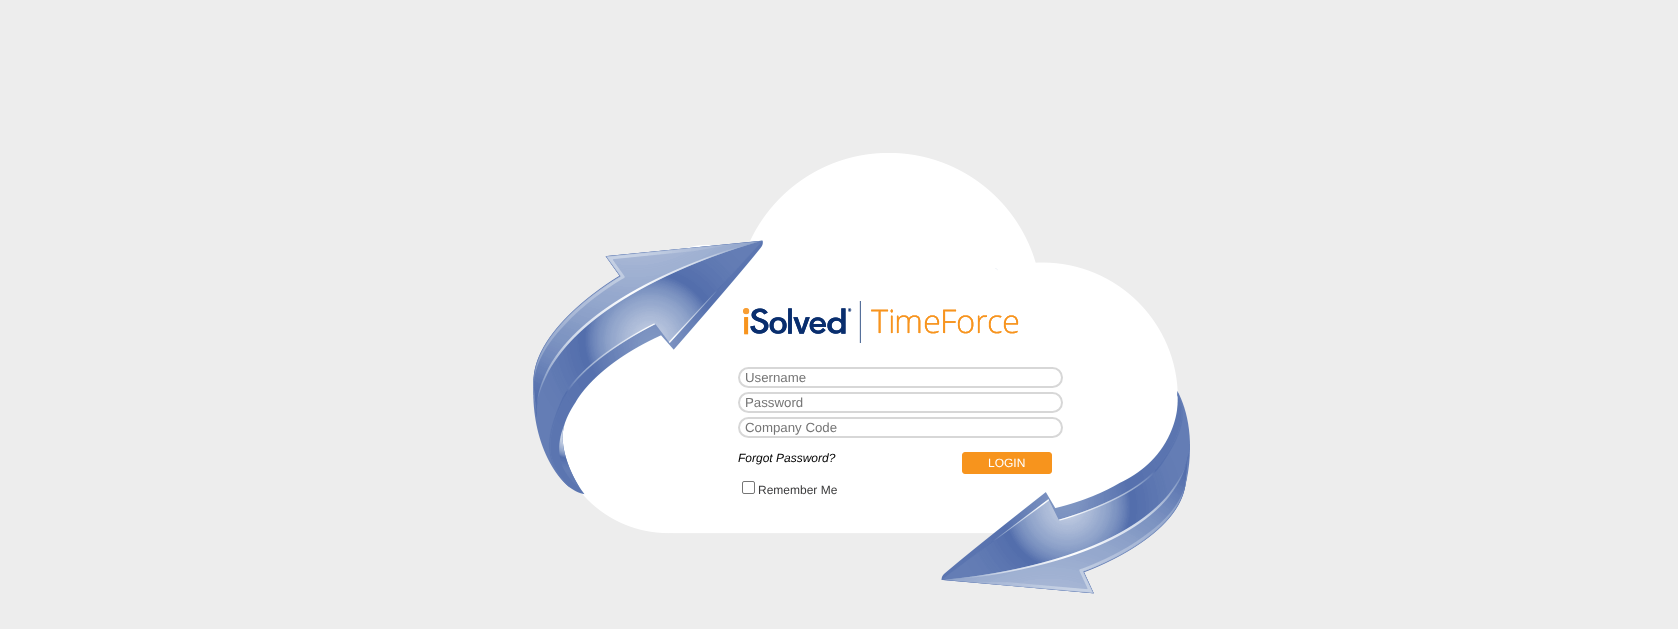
<!DOCTYPE html>
<meta charset="utf-8">
<style>body { margin: 0 } canvas { display: block }</style>
<canvas id="canvas" width="1678" height="629"></canvas>
<script type="module">
  const canvas = document.getElementById("canvas");
  const ctx = canvas.getContext("2d");
  ctx.miterLimit = 4;
  ctx.fontKerning = "normal";
  async function loadImage(src) {
    const img = new Image();
    img.src = src;
    await img.decode();
    return img;
  }

  ctx.fillStyle = "#ededed";
  ctx.fillRect(0, 0, 1678, 629);
  ctx.drawImage(await loadImage("img1.png"), 533, 153, 657, 441);
  ctx.beginPath();
  ctx.roundRect(739, 368, 323, 19, 9.5);
  ctx.strokeStyle = "#d7d7d7";
  ctx.lineWidth = 2;
  ctx.stroke();
  ctx.font = "13.25px Liberation Sans";
  ctx.fillStyle = "#757575";
  ctx.fillText("Username", 745, 382);
  ctx.beginPath();
  ctx.roundRect(739, 393, 323, 19, 9.5);
  ctx.stroke();
  ctx.fillText("Password", 745, 407);
  ctx.beginPath();
  ctx.roundRect(739, 418, 323, 19, 9.5);
  ctx.stroke();
  ctx.fillText("Company Code", 745, 432);
  ctx.font = "italic 12px Liberation Sans";
  ctx.fillStyle = "#000000";
  ctx.fillText("Forgot Password?", 738, 462);
  ctx.fillStyle = "#f7941d";
  ctx.beginPath();
  ctx.roundRect(962.5, 452.5, 89, 21, 2.5);
  ctx.fill();
  ctx.strokeStyle = "#f7941d";
  ctx.lineWidth = 1;
  ctx.stroke();
  ctx.font = "12px Liberation Sans";
  ctx.fillStyle = "#ffffff";
  ctx.fillText("LOGIN", 988, 467);
  ctx.beginPath();
  ctx.roundRect(742.5, 481.5, 12, 12, 1.5);
  ctx.strokeStyle = "#767676";
  ctx.stroke();
  ctx.fillStyle = "#3b3b3c";
  ctx.fillText("Remember Me", 758, 494);
</script>
